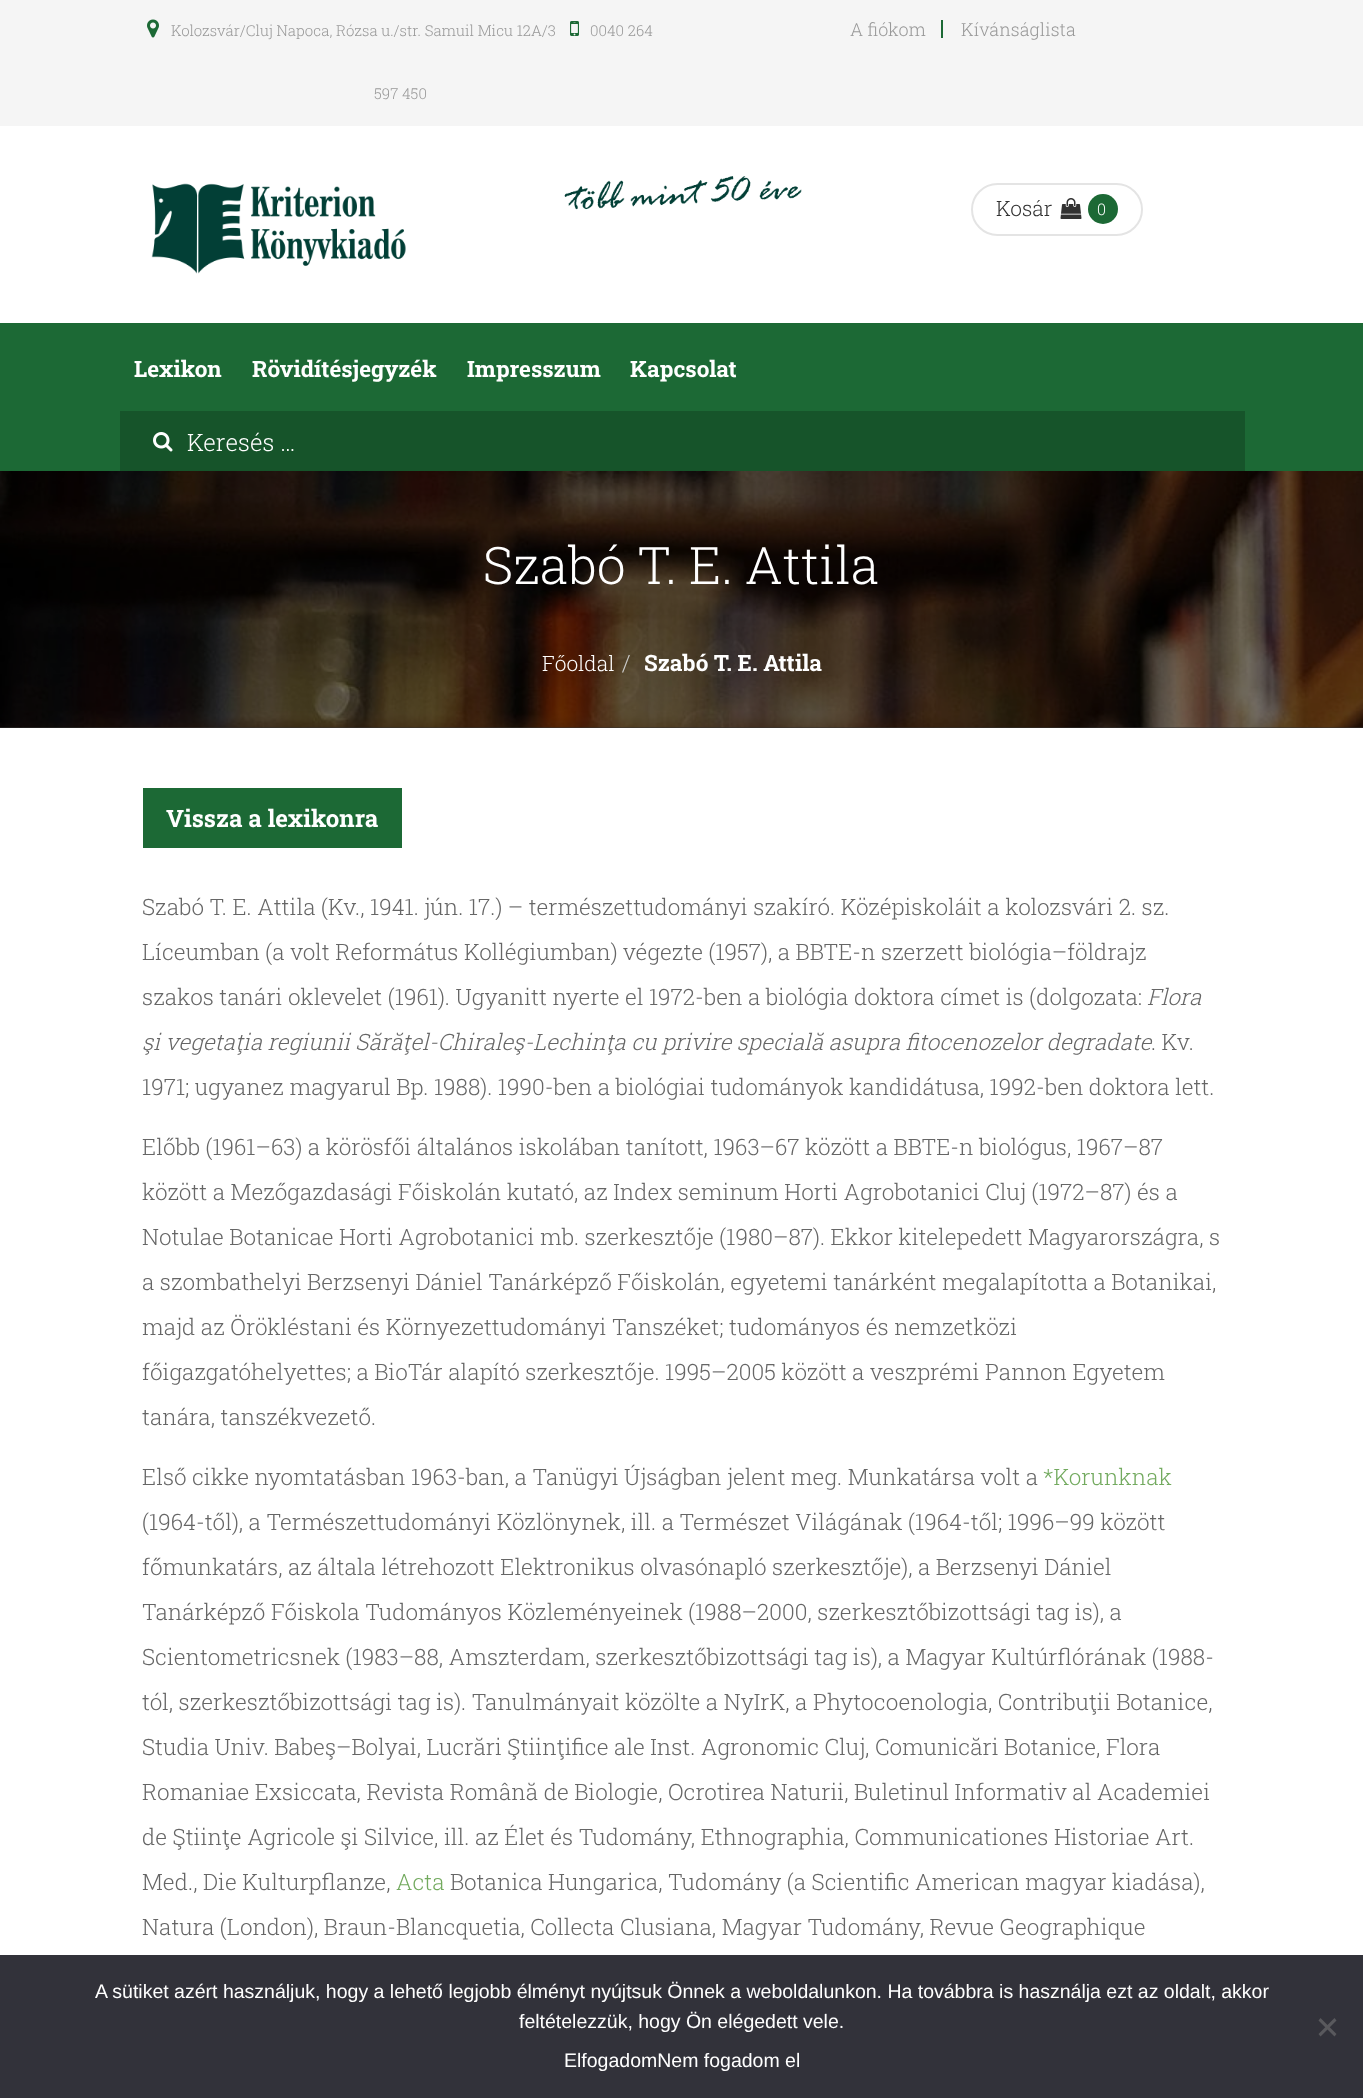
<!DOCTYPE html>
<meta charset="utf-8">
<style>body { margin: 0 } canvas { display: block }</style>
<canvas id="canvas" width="1363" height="2098"></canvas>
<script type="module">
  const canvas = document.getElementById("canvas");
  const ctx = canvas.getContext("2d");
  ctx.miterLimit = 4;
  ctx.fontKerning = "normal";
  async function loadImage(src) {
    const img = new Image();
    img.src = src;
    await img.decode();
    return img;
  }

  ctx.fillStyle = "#ffffff";
  ctx.fillRect(0, 0, 1363, 2098);
  ctx.fillStyle = "#f5f5f5";
  ctx.fillRect(0, 0, 1363, 126);
  ctx.drawImage(await loadImage("img1.png"), 147, 19, 12, 19);
  ctx.font = "300 15px Roboto Slab";
  ctx.fillStyle = "#999999";
  ctx.fillText("Kolozsvár/Cluj Napoca, Rózsa u./str. Samuil Micu 12A/3", 171, 36);
  ctx.drawImage(await loadImage("img2.png"), 570, 21, 9, 15);
  ctx.fillText("0040 264", 590, 36);
  ctx.fillText("597 450", 374, 99);
  ctx.fillStyle = "#1c6935";
  ctx.fillRect(941, 20, 2, 18);
  ctx.font = "300 18px Roboto Slab";
  ctx.fillStyle = "#999999";
  ctx.fillText("A fiókom", 850, 36);
  ctx.fillText("Kívánságlista", 961, 36);
  ctx.drawImage(await loadImage("img3.png"), 151, 183, 255, 91);
  ctx.drawImage(await loadImage("img4.png"), 564, 176, 238, 34);
  ctx.beginPath();
  ctx.roundRect(972, 184, 170, 51, 25.5);
  ctx.strokeStyle = "#e4e4e4";
  ctx.lineWidth = 2;
  ctx.stroke();
  ctx.font = "300 21px Roboto Slab";
  ctx.fillStyle = "#323232";
  ctx.fillText("Kosár", 996, 216);
  ctx.drawImage(await loadImage("img5.png"), 1060, 198, 22, 21);
  ctx.fillStyle = "#1c6935";
  ctx.beginPath();
  ctx.arc(1103, 209, 15, 0, Math.PI * 2);
  ctx.fill();
  ctx.font = "300 16px Roboto Slab";
  ctx.fillStyle = "#ffffff";
  ctx.fillText("0", 1097, 215);
  ctx.fillStyle = "#1c6935";
  ctx.fillRect(0, 323, 1363, 148);
  ctx.font = "bold 22.5px Roboto Slab";
  ctx.fillStyle = "#ffffff";
  ctx.fillText("Lexikon", 134, 377);
  ctx.fillText("Rövidítésjegyzék", 252, 377);
  ctx.fillText("Impresszum", 467, 377);
  ctx.fillText("Kapcsolat", 630, 377);
  ctx.fillStyle = "#16542a";
  ctx.fillRect(120, 411, 1125, 60);
  ctx.drawImage(await loadImage("img6.png"), 153, 432, 20, 20);
  ctx.font = "300 24px Roboto Slab";
  ctx.fillStyle = "#ffffff";
  ctx.fillText("Keresés …", 187, 451);
  ctx.fillStyle = "#333333";
  ctx.fillRect(0, 727, 1363, 1);
  ctx.drawImage(await loadImage("img7.png"), 0, 471, 1363, 257);
  ctx.wordSpacing = "-1px";
  ctx.font = "300 51.75px Roboto Slab";
  ctx.fillStyle = "#ffffff";
  ctx.fillText("Szabó T. E. Attila", 483, 584);
  ctx.wordSpacing = "0px";
  ctx.font = "300 21px Roboto Slab";
  ctx.fillText("Főoldal", 542, 671);
  ctx.font = "300 22.5px Roboto Slab";
  ctx.fillStyle = "#cccccc";
  ctx.fillText("/", 622, 671);
  ctx.font = "bold 22.5px Roboto Slab";
  ctx.fillStyle = "#ffffff";
  ctx.fillText("Szabó T. E. Attila", 644, 671);
  ctx.fillStyle = "#1c6935";
  ctx.fillRect(143, 788, 259, 60);
  ctx.font = "bold 24px Roboto Slab";
  ctx.fillStyle = "#ffffff";
  ctx.fillText("Vissza a lexikonra", 166, 827);
  ctx.font = "300 22.5px Roboto Slab";
  ctx.fillStyle = "#666666";
  ctx.fillText("Szabó T. E. Attila (Kv., 1941. jún. 17.) – természettudományi szakíró. Középiskoláit a kolozsvári 2. sz.", 142, 915);
  ctx.fillText("Líceumban (a volt Református Kollégiumban) végezte (1957), a BBTE-n szerzett biológia–földrajz", 142, 960);
  ctx.fillText("szakos tanári oklevelet (1961). Ugyanitt nyerte el 1972-ben a biológia doktora címet is (dolgozata:", 142, 1005);
  ctx.font = "italic 300 22.5px Roboto Slab";
  ctx.fillText("Flora", 1147, 1005);
  ctx.fillText("şi vegetaţia regiunii Sărăţel-Chiraleş-Lechinţa cu privire specială asupra fitocenozelor degradate", 142, 1050);
  ctx.font = "300 22.5px Roboto Slab";
  ctx.fillText(". Kv.", 1151, 1050);
  ctx.fillText("1971; ugyanez magyarul Bp. 1988). 1990-ben a biológiai tudományok kandidátusa, 1992-ben doktora lett.", 142, 1095);
  ctx.fillText("Előbb (1961–63) a körösfői általános iskolában tanított, 1963–67 között a BBTE-n biológus, 1967–87", 142, 1155);
  ctx.fillText("között a Mezőgazdasági Főiskolán kutató, az Index seminum Horti Agrobotanici Cluj (1972–87) és a", 142, 1200);
  ctx.fillText("Notulae Botanicae Horti Agrobotanici mb. szerkesztője (1980–87). Ekkor kitelepedett Magyarországra, s", 142, 1245);
  ctx.fillText("a szombathelyi Berzsenyi Dániel Tanárképző Főiskolán, egyetemi tanárként megalapította a Botanikai,", 142, 1290);
  ctx.fillText("majd az Örökléstani és Környezettudományi Tanszéket; tudományos és nemzetközi", 142, 1335);
  ctx.fillText("főigazgatóhelyettes; a BioTár alapító szerkesztője. 1995–2005 között a veszprémi Pannon Egyetem", 142, 1380);
  ctx.fillText("tanára, tanszékvezető.", 142, 1425);
  ctx.fillText("Első cikke nyomtatásban 1963-ban, a Tanügyi Újságban jelent meg. Munkatársa volt a", 142, 1485);
  ctx.fillStyle = "#73aa5f";
  ctx.fillText("*Korunknak", 1043, 1485);
  ctx.fillStyle = "#666666";
  ctx.fillText("(1964-től), a Természettudományi Közlönynek, ill. a Természet Világának (1964-től; 1996–99 között", 142, 1530);
  ctx.fillText("főmunkatárs, az általa létrehozott Elektronikus olvasónapló szerkesztője), a Berzsenyi Dániel", 142, 1575);
  ctx.fillText("Tanárképző Főiskola Tudományos Közleményeinek (1988–2000, szerkesztőbizottsági tag is), a", 142, 1620);
  ctx.fillText("Scientometricsnek (1983–88, Amszterdam, szerkesztőbizottsági tag is), a Magyar Kultúrflórának (1988-", 142, 1665);
  ctx.fillText("tól, szerkesztőbizottsági tag is). Tanulmányait közölte a NyIrK, a Phytocoenologia, Contribuţii Botanice,", 142, 1710);
  ctx.fillText("Studia Univ. Babeş–Bolyai, Lucrări Ştiinţifice ale Inst. Agronomic Cluj, Comunicări Botanice, Flora", 142, 1755);
  ctx.fillText("Romaniae Exsiccata, Revista Română de Biologie, Ocrotirea Naturii, Buletinul Informativ al Academiei", 142, 1800);
  ctx.fillText("de Ştiinţe Agricole şi Silvice, ill. az Élet és Tudomány, Ethnographia, Communicationes Historiae Art.", 142, 1845);
  ctx.fillText("Med., Die Kulturpflanze,", 142, 1890);
  ctx.fillStyle = "#73aa5f";
  ctx.fillText("Acta", 396, 1890);
  ctx.fillStyle = "#666666";
  ctx.fillText("Botanica Hungarica, Tudomány (a Scientific American magyar kiadása),", 450, 1890);
  ctx.fillText("Natura (London), Braun-Blancquetia, Collecta Clusiana, Magyar Tudomány, Revue Geographique", 142, 1935);
  ctx.fillStyle = "#32323a";
  ctx.fillRect(0, 1955, 1363, 143);
  ctx.font = "19.5px Liberation Sans";
  ctx.fillStyle = "#ffffff";
  ctx.fillText("A sütiket azért használjuk, hogy a lehető legjobb élményt nyújtsuk Önnek a weboldalunkon. Ha továbbra is használja ezt az oldalt, akkor", 95, 1998);
  ctx.fillText("feltételezzük, hogy Ön elégedett vele.", 519, 2028);
  ctx.fillStyle = "#59595d";
  ctx.beginPath();
  ctx.moveTo(1334.5, 2018);
  ctx.lineTo(1336.5, 2020.5);
  ctx.lineTo(1320.5, 2036.5);
  ctx.lineTo(1318.5, 2034);
  ctx.closePath();
  ctx.fill();
  ctx.beginPath();
  ctx.moveTo(1318.5, 2020.5);
  ctx.lineTo(1320.5, 2018);
  ctx.lineTo(1336.5, 2034);
  ctx.lineTo(1334.5, 2036.5);
  ctx.closePath();
  ctx.fill();
  ctx.fillStyle = "#ffffff";
  ctx.fillText("ElfogadomNem fogadom el", 564, 2067);
</script>
